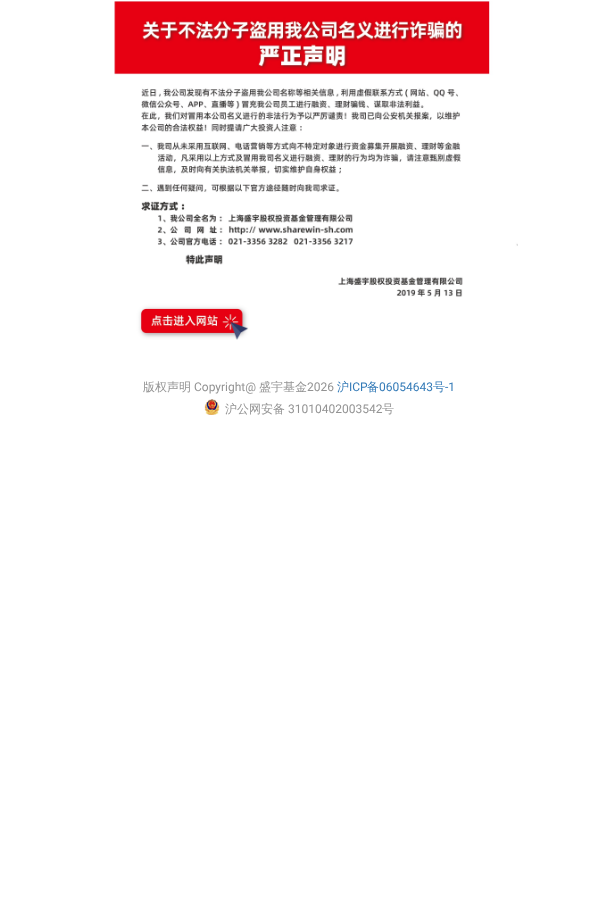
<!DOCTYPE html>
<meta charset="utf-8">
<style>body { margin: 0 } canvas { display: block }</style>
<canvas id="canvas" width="598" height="904"></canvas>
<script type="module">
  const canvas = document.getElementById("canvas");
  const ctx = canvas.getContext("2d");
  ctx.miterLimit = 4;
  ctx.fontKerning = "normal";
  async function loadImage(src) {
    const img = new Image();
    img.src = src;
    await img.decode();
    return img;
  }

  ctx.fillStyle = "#ffffff";
  ctx.fillRect(0, 0, 598, 904);
  ctx.drawImage(await loadImage("img1.png"), 114, 1, 404, 339);
  ctx.font = "500 12px WenQuanYi Zen Hei";
  ctx.fillStyle = "#939393";
  ctx.fillText("版权声明", 143, 391);
  ctx.font = "12px Roboto";
  ctx.fillText("Copyright@", 194, 391);
  ctx.font = "500 12px WenQuanYi Zen Hei";
  ctx.fillText("盛宇基金", 259, 391);
  ctx.font = "12px Roboto";
  ctx.fillText("2026", 307, 391);
  ctx.font = "500 12px WenQuanYi Zen Hei";
  ctx.fillStyle = "#337ab7";
  ctx.fillText("沪", 337, 391);
  ctx.font = "12px Roboto";
  ctx.fillText("ICP", 349, 391);
  ctx.font = "500 12px WenQuanYi Zen Hei";
  ctx.fillText("备", 367, 391);
  ctx.font = "12px Roboto";
  ctx.fillText("06054643", 379, 391);
  ctx.font = "500 12px WenQuanYi Zen Hei";
  ctx.fillText("号", 433, 391);
  ctx.font = "12px Roboto";
  ctx.fillText("-1", 445, 391);
  ctx.drawImage(await loadImage("img2.png"), 204, 399, 16, 16);
  ctx.font = "500 12px WenQuanYi Zen Hei";
  ctx.fillStyle = "#939393";
  ctx.fillText("沪公网安备", 225, 413);
  ctx.font = "12px Roboto";
  ctx.fillText("31010402003542", 288, 413);
  ctx.font = "500 12px WenQuanYi Zen Hei";
  ctx.fillText("号", 382, 413);
</script>
